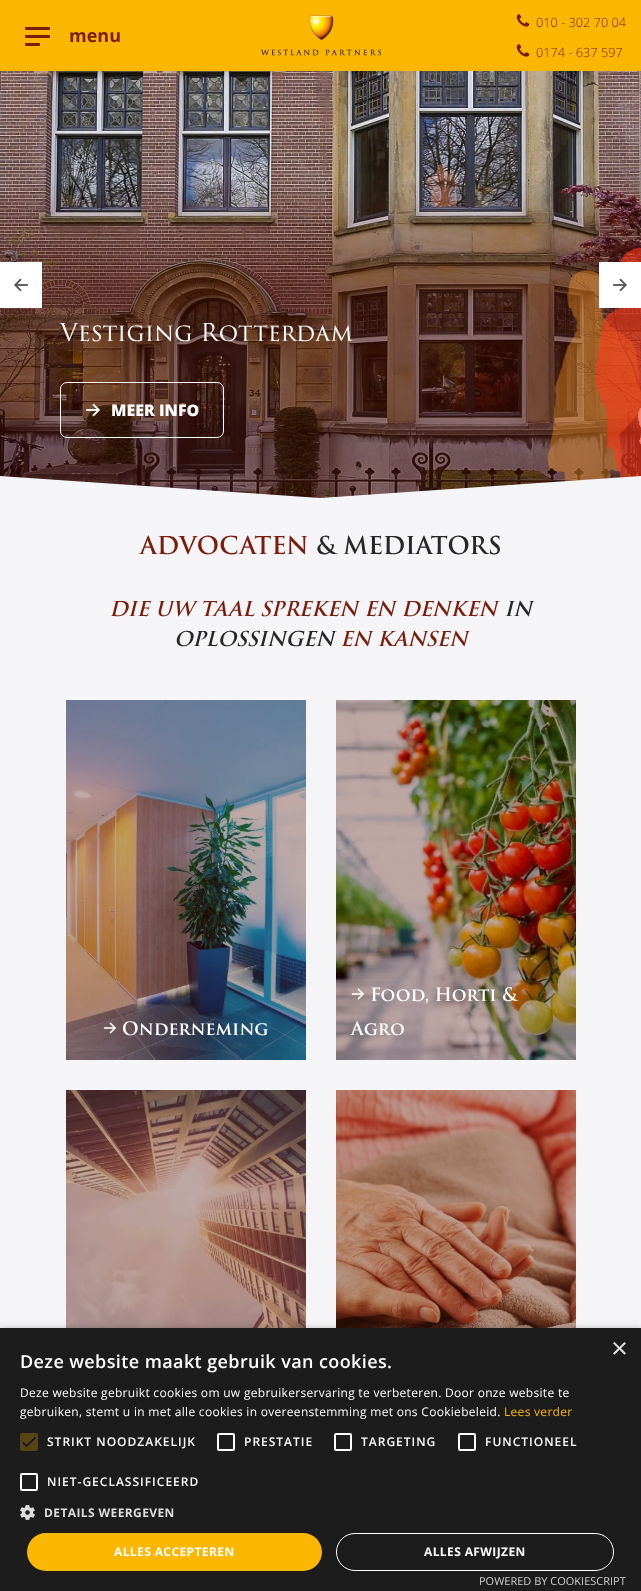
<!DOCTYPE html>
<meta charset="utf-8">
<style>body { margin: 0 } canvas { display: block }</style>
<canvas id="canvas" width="641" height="1591"></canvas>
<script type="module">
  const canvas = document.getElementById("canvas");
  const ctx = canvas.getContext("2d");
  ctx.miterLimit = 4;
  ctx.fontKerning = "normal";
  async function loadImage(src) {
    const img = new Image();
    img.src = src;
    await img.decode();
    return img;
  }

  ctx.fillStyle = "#fbb600";
  ctx.fillRect(0, 0, 641, 1591);
  ctx.fillStyle = "#791e0f";
  ctx.beginPath();
  ctx.roundRect(25, 35, 25, 3, 1);
  ctx.fill();
  ctx.beginPath();
  ctx.roundRect(25, 27, 25, 3, 1);
  ctx.fill();
  ctx.beginPath();
  ctx.roundRect(25, 43, 15, 3, 1);
  ctx.fill();
  ctx.font = "bold 18px Open Sans";
  ctx.fillText("menu", 69, 42);
  ctx.drawImage(await loadImage("img1.png"), 261, 15, 120, 41);
  ctx.drawImage(await loadImage("img2.png"), 516, 14, 14, 13);
  ctx.font = "300 12.75px Open Sans";
  ctx.fillText("010 - 302 70 04", 536, 27);
  ctx.drawImage(await loadImage("img2.png"), 516, 44, 14, 13);
  ctx.fillText("0174 - 637 597", 536, 57);
  ctx.drawImage(await loadImage("img6.png"), 0, 71, 641, 427);
  ctx.fillStyle = "#ffffff";
  ctx.fillRect(0, 262, 42, 46);
  ctx.drawImage(await loadImage("img3.png"), 14, 278, 14, 14);
  ctx.drawImage(await loadImage("img4.png"), 547, 248, 94, 234);
  ctx.fillRect(599, 262, 42, 46);
  ctx.drawImage(await loadImage("img5.png"), 613, 278, 14, 14);
  ctx.font = "24px 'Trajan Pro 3'";
  ctx.fillText("Vestiging Rotterdam", 60, 341);
  ctx.beginPath();
  ctx.roundRect(60.5, 382.5, 163, 55, 6.5);
  ctx.strokeStyle = "#ffffff";
  ctx.stroke();
  ctx.drawImage(await loadImage("img7.png"), 86, 403, 14, 14);
  ctx.font = "800 16px Open Sans";
  ctx.fillText("MEER INFO", 111, 416);
  ctx.save();
  ctx.beginPath();
  ctx.rect(0, 71, 641, 427);
  ctx.clip();
  ctx.fillStyle = "#f5f5f7";
  ctx.beginPath();
  ctx.moveTo(0, 476);
  ctx.lineTo(320, 498);
  ctx.lineTo(320, 998);
  ctx.lineTo(0, 976);
  ctx.closePath();
  ctx.fill();
  ctx.beginPath();
  ctx.moveTo(320, 498);
  ctx.lineTo(641, 476);
  ctx.lineTo(641, 976);
  ctx.lineTo(320, 998);
  ctx.closePath();
  ctx.fill();
  ctx.restore();
  ctx.fillStyle = "#f5f5f7";
  ctx.fillRect(0, 498, 641, 830);
  ctx.font = "600 24px 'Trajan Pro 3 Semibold'";
  ctx.fillStyle = "#791e0f";
  ctx.fillText("ADVOCATEN", 140, 554);
  ctx.fillStyle = "#272727";
  ctx.fillText("& MEDIATORS", 316, 554);
  ctx.font = "italic 600 20px 'Trajan Pro 3 Semibold'";
  ctx.fillStyle = "#791e0f";
  ctx.fillText("DIE UW TAAL SPREKEN EN DENKEN", 109, 616);
  ctx.fillStyle = "#272727";
  ctx.fillText("IN", 504, 616);
  ctx.fillText("OPLOSSINGEN", 174, 646);
  ctx.fillStyle = "#791e0f";
  ctx.fillText("EN KANSEN", 340, 646);
  ctx.drawImage(await loadImage("img8.png"), 66, 700, 240, 360);
  ctx.drawImage(await loadImage("img9.png"), 103, 1022, 14, 12);
  ctx.font = "600 18px 'Trajan Pro 3 Semibold'";
  ctx.fillStyle = "#ffffff";
  ctx.fillText("Onderneming", 122, 1035);
  ctx.drawImage(await loadImage("img10.png"), 336, 700, 240, 360);
  ctx.drawImage(await loadImage("img11.png"), 351, 988, 13, 12);
  ctx.fillText("Food, Horti &", 370, 1001);
  ctx.fillText("Agro", 351, 1035);
  ctx.drawImage(await loadImage("img12.png"), 66, 1090, 240, 238);
  ctx.drawImage(await loadImage("img13.png"), 336, 1090, 240, 238);
  ctx.fillStyle = "rgba(0, 0, 0, 0.35)";
  ctx.filter = "blur(4px)";
  ctx.beginPath();
  ctx.rect(1, 1330, 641, 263);
  ctx.fill();
  ctx.filter = "none";
  ctx.fillStyle = "#1c1c1c";
  ctx.fillRect(0, 1328, 641, 263);
  ctx.font = "29px Liberation Sans";
  ctx.fillStyle = "#dddddd";
  ctx.fillText("×", 611, 1358);
  ctx.letterSpacing = "0.4px";
  ctx.font = "600 18px Open Sans";
  ctx.fillStyle = "#ffffff";
  ctx.fillText("Deze website maakt gebruik van cookies.", 20, 1368);
  ctx.letterSpacing = "0.3px";
  ctx.font = "12px Open Sans";
  ctx.fillText("Deze website gebruikt cookies om uw gebruikerservaring te verbeteren. Door onze website te", 20, 1397);
  ctx.fillText("gebruiken, stemt u in met alle cookies in overeenstemming met ons Cookiebeleid.", 20, 1416);
  ctx.fillStyle = "#fcb700";
  ctx.fillText("Lees verder", 504, 1416);
  ctx.fillStyle = "#564415";
  ctx.beginPath();
  ctx.roundRect(20, 1433, 18, 18, 2);
  ctx.fill();
  ctx.beginPath();
  ctx.moveTo(23, 1442.5);
  ctx.lineTo(26.5, 1446);
  ctx.lineTo(35.5, 1437.5);
  ctx.strokeStyle = "#1c1c1c";
  ctx.lineWidth = 1.8;
  ctx.stroke();
  ctx.letterSpacing = "1px";
  ctx.font = "600 12px Open Sans";
  ctx.fillStyle = "#ffffff";
  ctx.fillText("STRIKT NOODZAKELIJK", 47, 1446);
  ctx.beginPath();
  ctx.roundRect(218, 1434, 16, 16, 1);
  ctx.strokeStyle = "#ffffff";
  ctx.lineWidth = 2;
  ctx.stroke();
  ctx.fillText("PRESTATIE", 244, 1446);
  ctx.beginPath();
  ctx.roundRect(335, 1434, 16, 16, 1);
  ctx.stroke();
  ctx.fillText("TARGETING", 361, 1446);
  ctx.beginPath();
  ctx.roundRect(459, 1434, 16, 16, 1);
  ctx.stroke();
  ctx.fillText("FUNCTIONEEL", 485, 1446);
  ctx.beginPath();
  ctx.roundRect(21, 1474, 16, 16, 1);
  ctx.stroke();
  ctx.fillText("NIET-GECLASSIFICEERD", 47, 1486);
  ctx.drawImage(await loadImage("img14.png"), 20, 1505, 15, 15);
  ctx.letterSpacing = "0.4px";
  ctx.font = "bold 12px 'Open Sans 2'";
  ctx.fillStyle = "#dddddd";
  ctx.fillText("DETAILS WEERGEVEN", 44, 1517);
  ctx.fillStyle = "#fcb700";
  ctx.beginPath();
  ctx.roundRect(27, 1533, 295, 38, 19);
  ctx.fill();
  ctx.fillStyle = "#ffffff";
  ctx.fillText("ALLES ACCEPTEREN", 114, 1556);
  ctx.beginPath();
  ctx.roundRect(336.5, 1533.5, 277, 37, 18.5);
  ctx.lineWidth = 1;
  ctx.stroke();
  ctx.fillText("ALLES AFWIJZEN", 424, 1556);
  ctx.letterSpacing = "0px";
  ctx.font = "11px Open Sans";
  ctx.fillStyle = "#d2d2d2";
  ctx.fillText("POWERED BY COOKIESCRIPT", 479, 1585);
</script>
